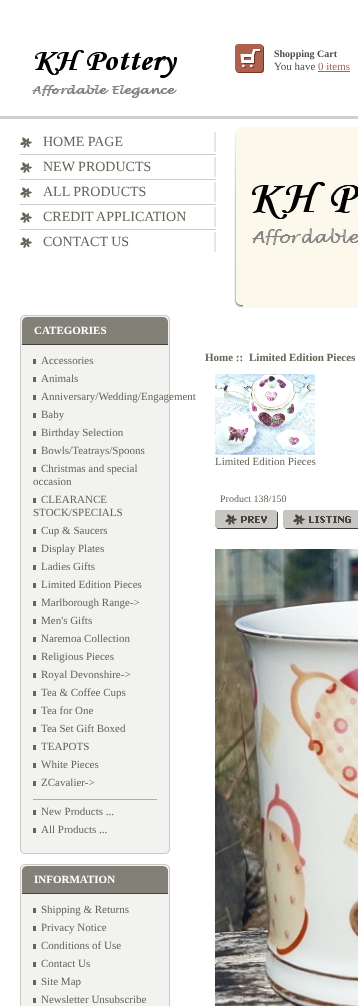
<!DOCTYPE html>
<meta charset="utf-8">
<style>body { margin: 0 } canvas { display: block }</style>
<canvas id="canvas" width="358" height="1006"></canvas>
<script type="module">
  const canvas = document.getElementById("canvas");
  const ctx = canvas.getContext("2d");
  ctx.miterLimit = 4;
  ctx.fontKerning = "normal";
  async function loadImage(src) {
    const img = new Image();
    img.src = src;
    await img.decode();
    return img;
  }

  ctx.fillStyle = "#ffffff";
  ctx.fillRect(0, 0, 358, 1006);
  ctx.drawImage(await loadImage("img1.png"), 32, 50, 145, 48);
  ctx.drawImage(await loadImage("img2.png"), 235, 44, 29, 29);
  ctx.font = "bold 10px Liberation Serif";
  ctx.fillStyle = "#4d4d4d";
  ctx.fillText("Shopping Cart", 274, 57);
  ctx.font = "11px Liberation Serif";
  ctx.fillText("You have", 274, 70);
  ctx.fillStyle = "#ad6250";
  ctx.fillText("0 items", 318, 70);
  ctx.fillRect(318, 71, 32, 1);
  ctx.fillStyle = "#d1d0cd";
  ctx.fillRect(0, 116, 358, 3);
  ctx.fillStyle = "#e7e7e4";
  ctx.fillRect(214, 130, 2, 22);
  ctx.fillStyle = "#ffffff";
  ctx.fillRect(214, 130, 2, 2);
  ctx.drawImage(await loadImage("img3.png"), 20, 137, 13, 11);
  ctx.font = "14px Liberation Serif";
  ctx.fillStyle = "#666459";
  ctx.fillText("HOME PAGE", 43, 146);
  ctx.fillStyle = "#e7e7e4";
  ctx.fillRect(214, 154, 2, 23);
  ctx.fillStyle = "#cccccc";
  ctx.fillRect(20, 154, 196, 1);
  ctx.fillStyle = "#ffffff";
  ctx.fillRect(214, 155, 2, 2);
  ctx.drawImage(await loadImage("img3.png"), 20, 162, 13, 11);
  ctx.fillStyle = "#666459";
  ctx.fillText("NEW PRODUCTS", 43, 171);
  ctx.fillStyle = "#e7e7e4";
  ctx.fillRect(214, 179, 2, 23);
  ctx.fillStyle = "#cccccc";
  ctx.fillRect(20, 179, 196, 1);
  ctx.fillStyle = "#ffffff";
  ctx.fillRect(214, 180, 2, 2);
  ctx.drawImage(await loadImage("img3.png"), 20, 187, 13, 11);
  ctx.fillStyle = "#666459";
  ctx.fillText("ALL PRODUCTS", 43, 196);
  ctx.fillStyle = "#e7e7e4";
  ctx.fillRect(214, 204, 2, 23);
  ctx.fillStyle = "#cccccc";
  ctx.fillRect(20, 204, 196, 1);
  ctx.fillStyle = "#ffffff";
  ctx.fillRect(214, 205, 2, 2);
  ctx.drawImage(await loadImage("img3.png"), 20, 212, 13, 11);
  ctx.fillStyle = "#666459";
  ctx.fillText("CREDIT APPLICATION", 43, 221);
  ctx.fillStyle = "#e7e7e4";
  ctx.fillRect(214, 229, 2, 23);
  ctx.fillStyle = "#cccccc";
  ctx.fillRect(20, 229, 196, 1);
  ctx.fillStyle = "#ffffff";
  ctx.fillRect(214, 230, 2, 2);
  ctx.drawImage(await loadImage("img3.png"), 20, 237, 13, 11);
  ctx.fillStyle = "#666459";
  ctx.fillText("CONTACT US", 43, 246);
  ctx.drawImage(await loadImage("img4.png"), 243, 127, 115, 181);
  ctx.drawImage(await loadImage("img5.png"), 234, 127, 9, 181);
  ctx.fillStyle = "#f2f2f1";
  ctx.fillRect(21, 316, 148, 537);
  ctx.fillStyle = "#cbcac5";
  ctx.fillRect(20, 853, 150, 1);
  ctx.fillRect(20, 315, 150, 1);
  ctx.fillRect(169, 316, 1, 537);
  ctx.fillRect(20, 316, 1, 537);
  ctx.drawImage(await loadImage("img6.png"), 165, 850, 5, 4);
  ctx.drawImage(await loadImage("img7.png"), 20, 850, 5, 4);
  ctx.drawImage(await loadImage("img8.png"), 165, 315, 5, 4);
  ctx.drawImage(await loadImage("img9.png"), 20, 315, 5, 4);
  ctx.fillStyle = "#828077";
  ctx.fillRect(22, 317, 146, 27);
  ctx.drawImage(await loadImage("img10.png"), 163, 317, 5, 5);
  ctx.fillStyle = "#41403b";
  ctx.fillRect(22, 344, 146, 1);
  ctx.drawImage(await loadImage("img11.png"), 22, 317, 5, 5);
  ctx.font = "bold 11px Liberation Serif";
  ctx.fillStyle = "#ffffff";
  ctx.fillText("CATEGORIES", 34, 334);
  ctx.font = "11px Liberation Serif";
  ctx.fillStyle = "#666459";
  ctx.fillText("Accessories", 41, 364);
  ctx.fillRect(33, 359, 3, 5);
  ctx.fillText("Animals", 41, 382);
  ctx.fillRect(33, 377, 3, 5);
  ctx.fillText("Anniversary/Wedding/Engagement", 41, 400);
  ctx.fillRect(33, 395, 3, 5);
  ctx.fillText("Baby", 41, 418);
  ctx.fillRect(33, 413, 3, 5);
  ctx.fillText("Birthday Selection", 41, 436);
  ctx.fillRect(33, 431, 3, 5);
  ctx.fillText("Bowls/Teatrays/Spoons", 41, 454);
  ctx.fillRect(33, 449, 3, 5);
  ctx.fillText("Christmas and special", 41, 472);
  ctx.fillRect(33, 467, 3, 5);
  ctx.fillText("occasion", 33, 485);
  ctx.fillText("CLEARANCE", 41, 503);
  ctx.fillRect(33, 498, 3, 5);
  ctx.fillText("STOCK/SPECIALS", 33, 516);
  ctx.fillText("Cup & Saucers", 41, 534);
  ctx.fillRect(33, 529, 3, 5);
  ctx.fillText("Display Plates", 41, 552);
  ctx.fillRect(33, 547, 3, 5);
  ctx.fillText("Ladies Gifts", 41, 570);
  ctx.fillRect(33, 565, 3, 5);
  ctx.fillText("Limited Edition Pieces", 41, 588);
  ctx.fillRect(33, 583, 3, 5);
  ctx.fillText("Marlborough Range->", 41, 606);
  ctx.fillRect(33, 601, 3, 5);
  ctx.fillText("Men's Gifts", 41, 624);
  ctx.fillRect(33, 619, 3, 5);
  ctx.fillText("Naremoa Collection", 41, 642);
  ctx.fillRect(33, 637, 3, 5);
  ctx.fillText("Religious Pieces", 41, 660);
  ctx.fillRect(33, 655, 3, 5);
  ctx.fillText("Royal Devonshire->", 41, 678);
  ctx.fillRect(33, 673, 3, 5);
  ctx.fillText("Tea & Coffee Cups", 41, 696);
  ctx.fillRect(33, 691, 3, 5);
  ctx.fillText("Tea for One", 41, 714);
  ctx.fillRect(33, 709, 3, 5);
  ctx.fillText("Tea Set Gift Boxed", 41, 732);
  ctx.fillRect(33, 727, 3, 5);
  ctx.fillText("TEAPOTS", 41, 750);
  ctx.fillRect(33, 745, 3, 5);
  ctx.fillText("White Pieces", 41, 768);
  ctx.fillRect(33, 763, 3, 5);
  ctx.fillText("ZCavalier->", 41, 786);
  ctx.fillRect(33, 781, 3, 5);
  ctx.fillStyle = "#aeaca5";
  ctx.fillRect(33, 799, 124, 1);
  ctx.fillStyle = "#666459";
  ctx.fillText("New Products ...", 41, 815);
  ctx.fillRect(33, 810, 3, 5);
  ctx.fillText("All Products ...", 41, 833);
  ctx.fillRect(33, 828, 3, 5);
  ctx.fillStyle = "#f2f2f1";
  ctx.fillRect(21, 865, 148, 141);
  ctx.fillStyle = "#cbcac5";
  ctx.fillRect(20, 864, 150, 1);
  ctx.fillRect(169, 865, 1, 141);
  ctx.fillRect(20, 865, 1, 141);
  ctx.drawImage(await loadImage("img8.png"), 165, 864, 5, 4);
  ctx.drawImage(await loadImage("img9.png"), 20, 864, 5, 4);
  ctx.fillStyle = "#828077";
  ctx.fillRect(22, 866, 146, 27);
  ctx.drawImage(await loadImage("img10.png"), 163, 866, 5, 5);
  ctx.fillStyle = "#41403b";
  ctx.fillRect(22, 893, 146, 1);
  ctx.drawImage(await loadImage("img11.png"), 22, 866, 5, 5);
  ctx.font = "bold 11px Liberation Serif";
  ctx.fillStyle = "#ffffff";
  ctx.fillText("INFORMATION", 34, 883);
  ctx.font = "11px Liberation Serif";
  ctx.fillStyle = "#666459";
  ctx.fillText("Shipping & Returns", 41, 913);
  ctx.fillRect(33, 908, 3, 5);
  ctx.fillText("Privacy Notice", 41, 931);
  ctx.fillRect(33, 926, 3, 5);
  ctx.fillText("Conditions of Use", 41, 949);
  ctx.fillRect(33, 944, 3, 5);
  ctx.fillText("Contact Us", 41, 967);
  ctx.fillRect(33, 962, 3, 5);
  ctx.fillText("Site Map", 41, 985);
  ctx.fillRect(33, 980, 3, 5);
  ctx.fillText("Newsletter Unsubscribe", 41, 1003);
  ctx.fillRect(33, 998, 3, 5);
  ctx.font = "bold 11px Liberation Serif";
  ctx.fillText("Home ::", 205, 361);
  ctx.fillText("Limited Edition Pieces", 249, 361);
  ctx.drawImage(await loadImage("img12.png"), 215, 374, 100, 81);
  ctx.font = "11px Liberation Serif";
  ctx.fillText("Limited Edition Pieces", 215, 465);
  ctx.font = "10px Liberation Serif";
  ctx.fillText("Product 138/150", 220, 502);
  ctx.drawImage(await loadImage("img13.png"), 215, 510, 63, 19);
  ctx.drawImage(await loadImage("img14.png"), 283, 510, 75, 19);
  ctx.drawImage(await loadImage("img15.png"), 215, 549, 143, 457);
</script>
